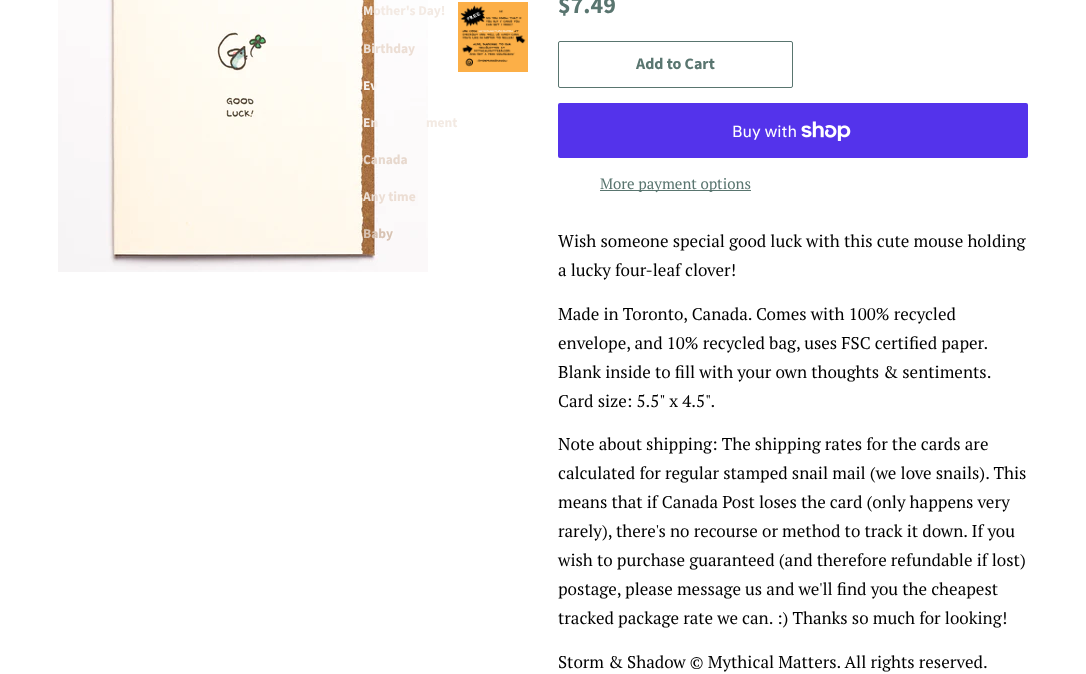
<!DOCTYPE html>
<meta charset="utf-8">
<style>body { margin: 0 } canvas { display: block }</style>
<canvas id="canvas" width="1086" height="674"></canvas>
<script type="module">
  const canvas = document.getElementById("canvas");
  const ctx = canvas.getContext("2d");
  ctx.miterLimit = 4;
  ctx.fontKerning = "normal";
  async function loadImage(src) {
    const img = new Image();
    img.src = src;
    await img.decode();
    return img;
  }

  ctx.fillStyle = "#ffffff";
  ctx.fillRect(0, 0, 1086, 674);
  ctx.drawImage(await loadImage("img1.png"), 58, 0, 370, 272);
  ctx.font = "bold 13.5px Source Sans Pro";
  ctx.fillStyle = "#f3eae3";
  ctx.fillText("Mother's Day!", 363, 15);
  ctx.fillStyle = "#ecded4";
  ctx.fillText("Birthday", 363, 53);
  ctx.fillStyle = "#f8f3ef";
  ctx.fillText("Ev", 363, 90);
  ctx.fillStyle = "#f3eae3";
  ctx.fillText("En", 363, 127);
  ctx.fillText("ment", 426, 127);
  ctx.fillStyle = "#e7d8cd";
  ctx.fillText("Canada", 363, 164);
  ctx.fillStyle = "#ecded4";
  ctx.fillText("Any time", 363, 201);
  ctx.fillStyle = "#d8c3b3";
  ctx.fillText("Baby", 363, 238);
  ctx.drawImage(await loadImage("img2.png"), 458, 2, 70, 70);
  ctx.font = "bold 24px Source Sans Pro";
  ctx.fillStyle = "#59756f";
  ctx.fillText("$7.49", 558, 13);
  ctx.beginPath();
  ctx.roundRect(558.5, 41.5, 234, 46, 1.5);
  ctx.strokeStyle = "#59756f";
  ctx.stroke();
  ctx.font = "bold 16px Source Sans Pro";
  ctx.fillText("Add to Cart", 636, 69);
  ctx.fillStyle = "#5433eb";
  ctx.beginPath();
  ctx.roundRect(558, 103, 470, 55, 2);
  ctx.fill();
  ctx.font = "16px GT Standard";
  ctx.fillStyle = "#ffffff";
  ctx.fillText("Buy with", 732, 137);
  ctx.drawImage(await loadImage("img3.png"), 801, 121, 50, 20);
  ctx.fillStyle = "#59756f";
  ctx.fillRect(600, 190, 151, 1);
  ctx.font = "15px PT Serif";
  ctx.fillText("More payment options", 600, 189);
  ctx.font = "17px PT Serif";
  ctx.fillStyle = "#000000";
  ctx.fillText("Wish someone special good luck with this cute mouse holding", 558, 247);
  ctx.fillText("a lucky four-leaf clover!", 558, 276);
  ctx.fillText("Made in Toronto, Canada. Comes with 100% recycled", 558, 320);
  ctx.fillText("envelope, and 10% recycled bag, uses FSC certified paper.", 558, 349);
  ctx.fillText("Blank inside to fill with your own thoughts & sentiments.", 558, 378);
  ctx.fillText("Card size: 5.5\" x 4.5\".", 558, 407);
  ctx.fillText("Note about shipping: The shipping rates for the cards are", 558, 450);
  ctx.fillText("calculated for regular stamped snail mail (we love snails). This", 558, 479);
  ctx.fillText("means that if Canada Post loses the card (only happens very", 558, 508);
  ctx.fillText("rarely), there's no recourse or method to track it down. If you", 558, 537);
  ctx.fillText("wish to purchase guaranteed (and therefore refundable if lost)", 558, 566);
  ctx.fillText("postage, please message us and we'll find you the cheapest", 558, 595);
  ctx.fillText("tracked package rate we can. :) Thanks so much for looking!", 558, 624);
  ctx.fillText("Storm & Shadow © Mythical Matters. All rights reserved.", 558, 668);
</script>
